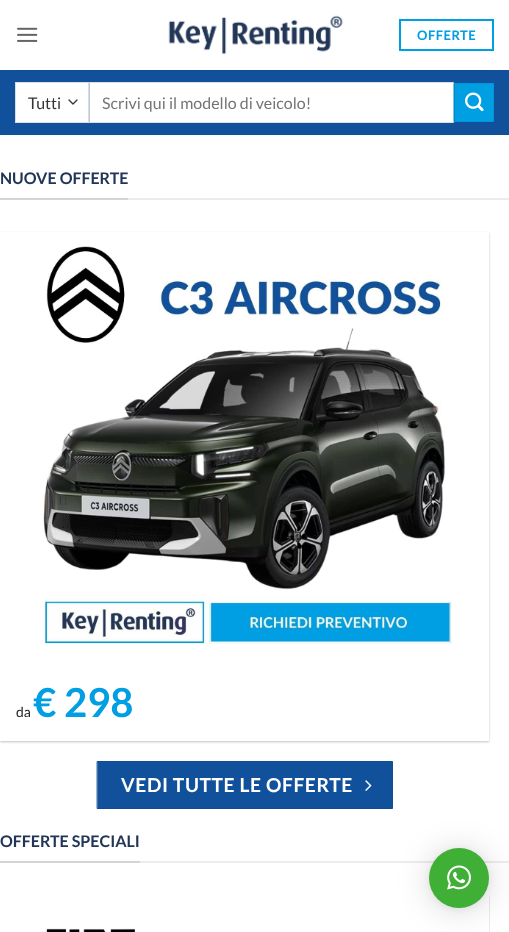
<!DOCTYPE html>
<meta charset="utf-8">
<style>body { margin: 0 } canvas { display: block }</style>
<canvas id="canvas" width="509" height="932"></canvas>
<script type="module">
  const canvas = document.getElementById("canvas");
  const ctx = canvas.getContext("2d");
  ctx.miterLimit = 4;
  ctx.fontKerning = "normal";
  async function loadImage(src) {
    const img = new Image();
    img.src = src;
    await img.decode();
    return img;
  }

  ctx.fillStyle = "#ffffff";
  ctx.fillRect(0, 0, 509, 932);
  ctx.drawImage(await loadImage("img1.png"), 17, 27, 21, 15);
  ctx.drawImage(await loadImage("img2.png"), 168, 15, 175, 40);
  ctx.strokeStyle = "#009ee3";
  ctx.lineWidth = 2;
  ctx.strokeRect(400, 20, 93, 30);
  ctx.letterSpacing = "0.5px";
  ctx.font = "bold 13px Lato";
  ctx.fillStyle = "#009ee3";
  ctx.fillText("OFFERTE", 417, 40);
  ctx.fillStyle = "#11519b";
  ctx.fillRect(0, 70, 509, 65);
  ctx.fillStyle = "#134d8f";
  ctx.fillRect(15, 70, 479, 1);
  ctx.fillStyle = "#ffffff";
  ctx.fillRect(16, 83, 72, 39);
  ctx.beginPath();
  ctx.moveTo(69, 100);
  ctx.lineTo(73, 104);
  ctx.lineTo(77, 100);
  ctx.strokeStyle = "#333333";
  ctx.lineWidth = 1.3;
  ctx.lineCap = "round";
  ctx.lineJoin = "round";
  ctx.stroke();
  ctx.strokeStyle = "#dddddd";
  ctx.lineWidth = 1;
  ctx.lineJoin = "miter";
  ctx.strokeRect(15.5, 82.5, 73, 40);
  ctx.letterSpacing = "0px";
  ctx.font = "16px Lato";
  ctx.fillStyle = "#333333";
  ctx.fillText("Tutti", 28, 109);
  ctx.fillStyle = "#ffffff";
  ctx.beginPath();
  ctx.rect(89.5, 82.5, 364, 40);
  ctx.fill();
  ctx.stroke();
  ctx.fillStyle = "#757575";
  ctx.fillText("Scrivi qui il modello di veicolo!", 102, 109);
  ctx.fillStyle = "#009ee3";
  ctx.beginPath();
  ctx.rect(454.5, 83.5, 39, 38);
  ctx.fill();
  ctx.strokeStyle = "#0096d8";
  ctx.stroke();
  ctx.drawImage(await loadImage("img3.png"), 465, 92, 19, 20);
  ctx.fillStyle = "#ececec";
  ctx.fillRect(128, 198, 381, 2);
  ctx.fillStyle = "#d4d4d4";
  ctx.fillRect(0, 198, 128, 2);
  ctx.font = "bold 16px Lato";
  ctx.fillStyle = "#213657";
  ctx.fillText("NUOVE OFFERTE", 0, 184);
  ctx.save();
  ctx.beginPath();
  ctx.moveTo(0, 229);
  ctx.lineTo(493, 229);
  ctx.lineTo(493, 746);
  ctx.lineTo(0, 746);
  ctx.closePath();
  ctx.moveTo(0, 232);
  ctx.lineTo(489, 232);
  ctx.lineTo(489, 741);
  ctx.lineTo(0, 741);
  ctx.closePath();
  ctx.clip("evenodd");
  ctx.fillStyle = "rgba(0, 0, 0, 0.24)";
  ctx.filter = "blur(1px)";
  ctx.beginPath();
  ctx.rect(0, 233, 489, 509);
  ctx.fill();
  ctx.filter = "none";
  ctx.restore();
  ctx.drawImage(await loadImage("img4.png"), 42, 246, 411, 398);
  ctx.font = "14px Lato";
  ctx.fillStyle = "#262626";
  ctx.fillText("da", 16, 717);
  ctx.font = "bold 40px Lato";
  ctx.fillStyle = "#009ee3";
  ctx.fillText("€ 298", 33, 717);
  ctx.fillStyle = "#11519b";
  ctx.beginPath();
  ctx.rect(97.5, 761.5, 295, 47);
  ctx.fill();
  ctx.strokeStyle = "#104d93";
  ctx.stroke();
  ctx.letterSpacing = "0.6px";
  ctx.font = "bold 19.25px Lato";
  ctx.fillStyle = "#ffffff";
  ctx.fillText("VEDI TUTTE LE OFFERTE", 121, 792);
  ctx.drawImage(await loadImage("img5.png"), 365, 780, 7, 11);
  ctx.fillStyle = "#ececec";
  ctx.fillRect(140, 861, 369, 2);
  ctx.fillStyle = "#d4d4d4";
  ctx.fillRect(0, 861, 140, 2);
  ctx.letterSpacing = "0px";
  ctx.font = "bold 16px Lato";
  ctx.fillStyle = "#213657";
  ctx.fillText("OFFERTE SPECIALI", 0, 847);
  ctx.save();
  ctx.beginPath();
  ctx.rect(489, 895, 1, 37);
  ctx.clip();
  ctx.fillStyle = "rgba(0, 0, 0, 0.24)";
  ctx.filter = "blur(1px)";
  ctx.beginPath();
  ctx.rect(0, 896, 489, 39);
  ctx.fill();
  ctx.filter = "none";
  ctx.restore();
  ctx.drawImage(await loadImage("img6.png"), 45, 928, 91, 4);
  ctx.fillStyle = "rgba(0, 0, 0, 0.16)";
  ctx.filter = "blur(16px)";
  ctx.beginPath();
  ctx.roundRect(429, 850, 60, 60, 30);
  ctx.fill();
  ctx.filter = "none";
  ctx.fillStyle = "rgba(0, 0, 0, 0.06)";
  ctx.filter = "blur(3px)";
  ctx.beginPath();
  ctx.roundRect(429, 849, 60, 60, 30);
  ctx.fill();
  ctx.filter = "none";
  ctx.fillStyle = "#40af36";
  ctx.beginPath();
  ctx.arc(459, 878, 30, 0, Math.PI * 2);
  ctx.fill();
  ctx.drawImage(await loadImage("img7.png"), 447, 865, 24, 25);
</script>
